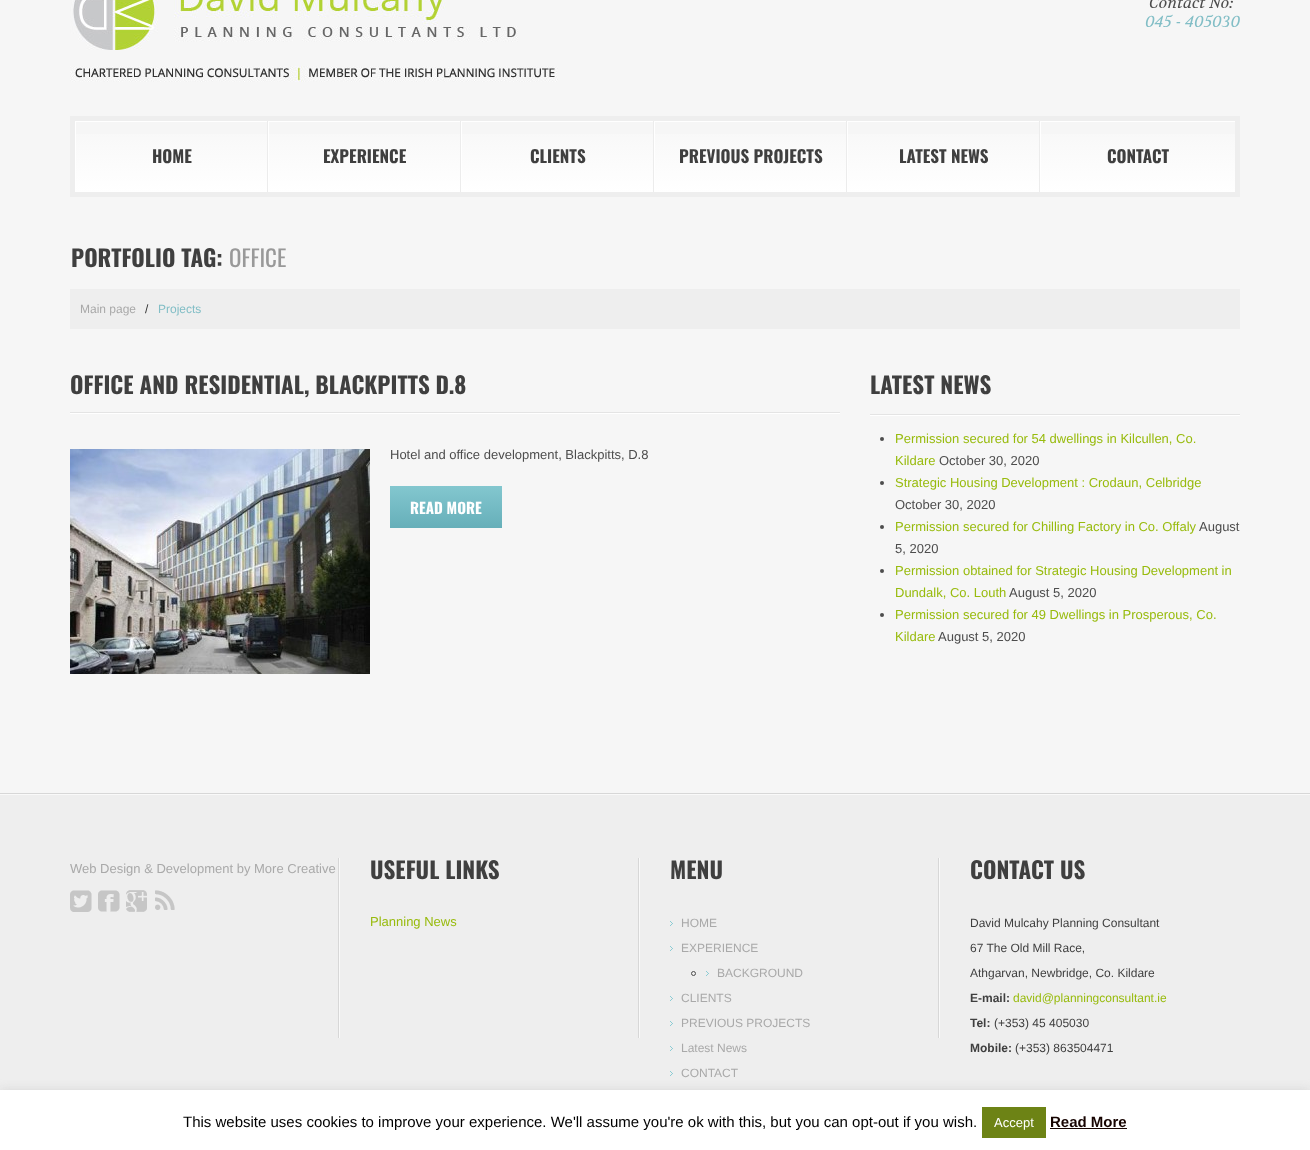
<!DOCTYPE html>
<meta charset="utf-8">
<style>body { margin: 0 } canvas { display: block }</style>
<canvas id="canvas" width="1310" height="1150"></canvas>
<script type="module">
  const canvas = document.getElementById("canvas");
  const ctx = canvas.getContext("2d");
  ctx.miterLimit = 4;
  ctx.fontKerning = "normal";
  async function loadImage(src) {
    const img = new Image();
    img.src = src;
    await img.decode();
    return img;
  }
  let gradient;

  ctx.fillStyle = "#f6f6f6";
  ctx.fillRect(0, 0, 1310, 1150);
  ctx.drawImage(await loadImage("img1.png"), 70, 0, 488, 82);
  ctx.font = "italic 16px Volkhov";
  ctx.fillStyle = "#4d4d4d";
  ctx.fillText("Contact No:", 1149, 8);
  ctx.fillStyle = "#82bec6";
  ctx.fillText("045 - 405030", 1145, 27);
  ctx.strokeStyle = "#eeeeee";
  ctx.lineWidth = 5;
  ctx.strokeRect(72.5, 118.5, 1165, 76);
  gradient = ctx.createLinearGradient(172, 121, 172, 192);
  gradient.addColorStop(0, "#f7f7f7");
  gradient.addColorStop(1, "#ffffff");
  ctx.fillStyle = gradient;
  ctx.fillRect(76, 134, 191, 58);
  ctx.fillStyle = "#ececec";
  ctx.fillRect(267, 121, 1, 71);
  ctx.fillStyle = "#ffffff";
  ctx.fillRect(75, 121, 1, 71);
  ctx.fillRect(76, 121, 191, 1);
  ctx.font = "bold 17px Oswald";
  ctx.fillStyle = "#3f3f3f";
  ctx.fillText("HOME", 152, 163);
  gradient = ctx.createLinearGradient(365, 121, 365, 192);
  gradient.addColorStop(0, "#f7f7f7");
  gradient.addColorStop(1, "#ffffff");
  ctx.fillStyle = gradient;
  ctx.fillRect(269, 134, 191, 58);
  ctx.fillStyle = "#ececec";
  ctx.fillRect(460, 121, 1, 71);
  ctx.fillStyle = "#ffffff";
  ctx.fillRect(268, 121, 1, 71);
  ctx.fillRect(269, 121, 191, 1);
  ctx.fillStyle = "#3f3f3f";
  ctx.fillText("EXPERIENCE", 323, 163);
  gradient = ctx.createLinearGradient(558, 121, 558, 192);
  gradient.addColorStop(0, "#f7f7f7");
  gradient.addColorStop(1, "#ffffff");
  ctx.fillStyle = gradient;
  ctx.fillRect(462, 134, 191, 58);
  ctx.fillStyle = "#ececec";
  ctx.fillRect(653, 121, 1, 71);
  ctx.fillStyle = "#ffffff";
  ctx.fillRect(461, 121, 1, 71);
  ctx.fillRect(462, 121, 191, 1);
  ctx.fillStyle = "#3f3f3f";
  ctx.fillText("CLIENTS", 530, 163);
  gradient = ctx.createLinearGradient(751, 121, 751, 192);
  gradient.addColorStop(0, "#f7f7f7");
  gradient.addColorStop(1, "#ffffff");
  ctx.fillStyle = gradient;
  ctx.fillRect(655, 134, 191, 58);
  ctx.fillStyle = "#ececec";
  ctx.fillRect(846, 121, 1, 71);
  ctx.fillStyle = "#ffffff";
  ctx.fillRect(654, 121, 1, 71);
  ctx.fillRect(655, 121, 191, 1);
  ctx.fillStyle = "#3f3f3f";
  ctx.fillText("PREVIOUS PROJECTS", 679, 163);
  gradient = ctx.createLinearGradient(944, 121, 944, 192);
  gradient.addColorStop(0, "#f7f7f7");
  gradient.addColorStop(1, "#ffffff");
  ctx.fillStyle = gradient;
  ctx.fillRect(848, 134, 191, 58);
  ctx.fillStyle = "#ececec";
  ctx.fillRect(1039, 121, 1, 71);
  ctx.fillStyle = "#ffffff";
  ctx.fillRect(847, 121, 1, 71);
  ctx.fillRect(848, 121, 191, 1);
  ctx.fillStyle = "#3f3f3f";
  ctx.fillText("LATEST NEWS", 899, 163);
  gradient = ctx.createLinearGradient(1138, 121, 1138, 192);
  gradient.addColorStop(0, "#f7f7f7");
  gradient.addColorStop(1, "#ffffff");
  ctx.fillStyle = gradient;
  ctx.fillRect(1041, 134, 194, 58);
  ctx.fillStyle = "#ffffff";
  ctx.fillRect(1040, 121, 1, 71);
  ctx.fillRect(1041, 121, 194, 1);
  ctx.fillStyle = "#3f3f3f";
  ctx.fillText("CONTACT", 1107, 163);
  ctx.font = "bold 23px Oswald";
  ctx.fillText("PORTFOLIO TAG:", 71, 267);
  ctx.font = "23px Oswald";
  ctx.fillStyle = "#999999";
  ctx.fillText("OFFICE", 229, 267);
  ctx.fillStyle = "#eeeeee";
  ctx.fillRect(70, 289, 1170, 40);
  ctx.font = "12px Liberation Sans";
  ctx.fillStyle = "#a9a9a9";
  ctx.fillText("Main page", 80, 313);
  ctx.fillStyle = "#333333";
  ctx.fillText("/", 145, 313);
  ctx.fillStyle = "#82bec6";
  ctx.fillText("Projects", 158, 313);
  ctx.fillStyle = "#ffffff";
  ctx.fillRect(70, 413, 770, 1);
  ctx.font = "bold 23px Oswald";
  ctx.fillStyle = "#3f3f3f";
  ctx.fillText("OFFICE AND RESIDENTIAL, BLACKPITTS D.8", 70, 394);
  ctx.fillStyle = "#e4e4e4";
  ctx.fillRect(70, 412, 770, 1);
  ctx.drawImage(await loadImage("img2.png"), 70, 449, 300, 225);
  ctx.font = "13px Liberation Sans";
  ctx.fillStyle = "#4d4d4d";
  ctx.fillText("Hotel and office development, Blackpitts, D.8", 390, 459);
  gradient = ctx.createLinearGradient(446, 486, 446, 528);
  gradient.addColorStop(0, "#83c7cf");
  gradient.addColorStop(1, "#66afb9");
  ctx.fillStyle = gradient;
  ctx.fillRect(390, 486, 112, 42);
  ctx.font = "bold 15px Oswald";
  ctx.fillStyle = "#ffffff";
  ctx.fillText("READ MORE", 410, 514);
  ctx.fillRect(870, 415, 370, 1);
  ctx.font = "bold 23px Oswald";
  ctx.fillStyle = "#3f3f3f";
  ctx.fillText("LATEST NEWS", 870, 394);
  ctx.fillStyle = "#e4e4e4";
  ctx.fillRect(870, 414, 370, 1);
  ctx.fillStyle = "#4d4d4d";
  ctx.beginPath();
  ctx.arc(882, 439, 2, 0, Math.PI * 2);
  ctx.fill();
  ctx.font = "13px Liberation Sans";
  ctx.fillStyle = "#98bb0d";
  ctx.fillText("Permission secured for 54 dwellings in Kilcullen, Co.", 895, 443);
  ctx.fillText("Kildare", 895, 465);
  ctx.fillStyle = "#4d4d4d";
  ctx.fillText("October 30, 2020", 939, 465);
  ctx.beginPath();
  ctx.arc(882, 483, 2, 0, Math.PI * 2);
  ctx.fill();
  ctx.fillStyle = "#98bb0d";
  ctx.fillText("Strategic Housing Development : Crodaun, Celbridge", 895, 487);
  ctx.fillStyle = "#4d4d4d";
  ctx.fillText("October 30, 2020", 895, 509);
  ctx.beginPath();
  ctx.arc(882, 527, 2, 0, Math.PI * 2);
  ctx.fill();
  ctx.fillStyle = "#98bb0d";
  ctx.fillText("Permission secured for Chilling Factory in Co. Offaly", 895, 531);
  ctx.fillStyle = "#4d4d4d";
  ctx.fillText("August", 1199, 531);
  ctx.fillText("5, 2020", 895, 553);
  ctx.beginPath();
  ctx.arc(882, 571, 2, 0, Math.PI * 2);
  ctx.fill();
  ctx.fillStyle = "#98bb0d";
  ctx.fillText("Permission obtained for Strategic Housing Development in", 895, 575);
  ctx.fillText("Dundalk, Co. Louth", 895, 597);
  ctx.fillStyle = "#4d4d4d";
  ctx.fillText("August 5, 2020", 1009, 597);
  ctx.beginPath();
  ctx.arc(882, 615, 2, 0, Math.PI * 2);
  ctx.fill();
  ctx.fillStyle = "#98bb0d";
  ctx.fillText("Permission secured for 49 Dwellings in Prosperous, Co.", 895, 619);
  ctx.fillText("Kildare", 895, 641);
  ctx.fillStyle = "#4d4d4d";
  ctx.fillText("August 5, 2020", 938, 641);
  ctx.fillStyle = "#eeeeee";
  ctx.fillRect(0, 795, 1310, 295);
  ctx.fillStyle = "#f9f9f9";
  ctx.fillRect(0, 794, 1310, 1);
  ctx.fillStyle = "#d7d7d7";
  ctx.fillRect(0, 793, 1310, 1);
  ctx.fillStyle = "#a9a9a9";
  ctx.fillText("Web Design & Development by More Creative", 70, 873);
  ctx.fillStyle = "#d7d7d7";
  ctx.fillRect(338, 858, 1, 180);
  ctx.fillStyle = "#f9f9f9";
  ctx.fillRect(339, 858, 1, 180);
  ctx.drawImage(await loadImage("img3.png"), 70, 890, 22, 22);
  ctx.drawImage(await loadImage("img4.png"), 98, 890, 22, 22);
  ctx.drawImage(await loadImage("img5.png"), 126, 890, 21, 22);
  ctx.drawImage(await loadImage("img6.png"), 155, 890, 20, 20);
  ctx.font = "bold 23px Oswald";
  ctx.fillStyle = "#3f3f3f";
  ctx.fillText("USEFUL LINKS", 370, 879);
  ctx.font = "13px Liberation Sans";
  ctx.fillStyle = "#98bb0d";
  ctx.fillText("Planning News", 370, 926);
  ctx.fillStyle = "#d7d7d7";
  ctx.fillRect(638, 858, 1, 180);
  ctx.fillStyle = "#f9f9f9";
  ctx.fillRect(639, 858, 1, 180);
  ctx.font = "bold 23px Oswald";
  ctx.fillStyle = "#3f3f3f";
  ctx.fillText("MENU", 670, 879);
  ctx.drawImage(await loadImage("img7.png"), 670, 921, 3, 5);
  ctx.font = "12px Liberation Sans";
  ctx.fillStyle = "#a9a9a9";
  ctx.fillText("HOME", 681, 927);
  ctx.drawImage(await loadImage("img7.png"), 670, 946, 3, 5);
  ctx.fillText("EXPERIENCE", 681, 952);
  ctx.drawImage(await loadImage("img7.png"), 706, 971, 3, 5);
  ctx.beginPath();
  ctx.arc(693.5, 973.5, 2, 0, Math.PI * 2);
  ctx.strokeStyle = "#4d4d4d";
  ctx.lineWidth = 1;
  ctx.stroke();
  ctx.fillText("BACKGROUND", 717, 977);
  ctx.drawImage(await loadImage("img7.png"), 670, 996, 3, 5);
  ctx.fillText("CLIENTS", 681, 1002);
  ctx.drawImage(await loadImage("img7.png"), 670, 1021, 3, 5);
  ctx.fillText("PREVIOUS PROJECTS", 681, 1027);
  ctx.drawImage(await loadImage("img7.png"), 670, 1046, 3, 5);
  ctx.fillText("Latest News", 681, 1052);
  ctx.drawImage(await loadImage("img7.png"), 670, 1071, 3, 5);
  ctx.fillText("CONTACT", 681, 1077);
  ctx.fillStyle = "#d7d7d7";
  ctx.fillRect(938, 858, 1, 180);
  ctx.fillStyle = "#f9f9f9";
  ctx.fillRect(939, 858, 1, 180);
  ctx.font = "bold 23px Oswald";
  ctx.fillStyle = "#3f3f3f";
  ctx.fillText("CONTACT US", 970, 879);
  ctx.font = "12px Liberation Sans";
  ctx.fillText("David Mulcahy Planning Consultant", 970, 927);
  ctx.fillText("67 The Old Mill Race,", 970, 952);
  ctx.fillText("Athgarvan, Newbridge, Co. Kildare", 970, 977);
  ctx.font = "bold 12px Liberation Sans";
  ctx.fillText("E-mail:", 970, 1002);
  ctx.font = "12px Liberation Sans";
  ctx.fillStyle = "#98bb0d";
  ctx.fillText("david@planningconsultant.ie", 1013, 1002);
  ctx.font = "bold 12px Liberation Sans";
  ctx.fillStyle = "#3f3f3f";
  ctx.fillText("Tel:", 970, 1027);
  ctx.font = "12px Liberation Sans";
  ctx.fillText("(+353) 45 405030", 994, 1027);
  ctx.font = "bold 12px Liberation Sans";
  ctx.fillText("Mobile:", 970, 1052);
  ctx.font = "12px Liberation Sans";
  ctx.fillText("(+353) 863504471", 1015, 1052);
  ctx.fillStyle = "rgba(172, 171, 171, 0.3)";
  ctx.filter = "blur(5px)";
  ctx.beginPath();
  ctx.rect(0, 1089, 1310, 60);
  ctx.fill();
  ctx.filter = "none";
  ctx.fillStyle = "#ffffff";
  ctx.fillRect(0, 1090, 1310, 60);
  ctx.font = "15px Liberation Sans";
  ctx.fillStyle = "#000000";
  ctx.fillText("This website uses cookies to improve your experience. We'll assume you're ok with this, but you can opt-out if you wish.", 183, 1127);
  ctx.fillStyle = "#6d8315";
  ctx.fillRect(982, 1107, 64, 31);
  ctx.font = "13px Liberation Sans";
  ctx.fillStyle = "#ffffff";
  ctx.fillText("Accept", 994, 1127);
  ctx.font = "bold 15px Liberation Sans";
  ctx.fillStyle = "#160300";
  ctx.fillText("Read More", 1050, 1127);
  ctx.fillRect(1050, 1128, 77, 1);
</script>
